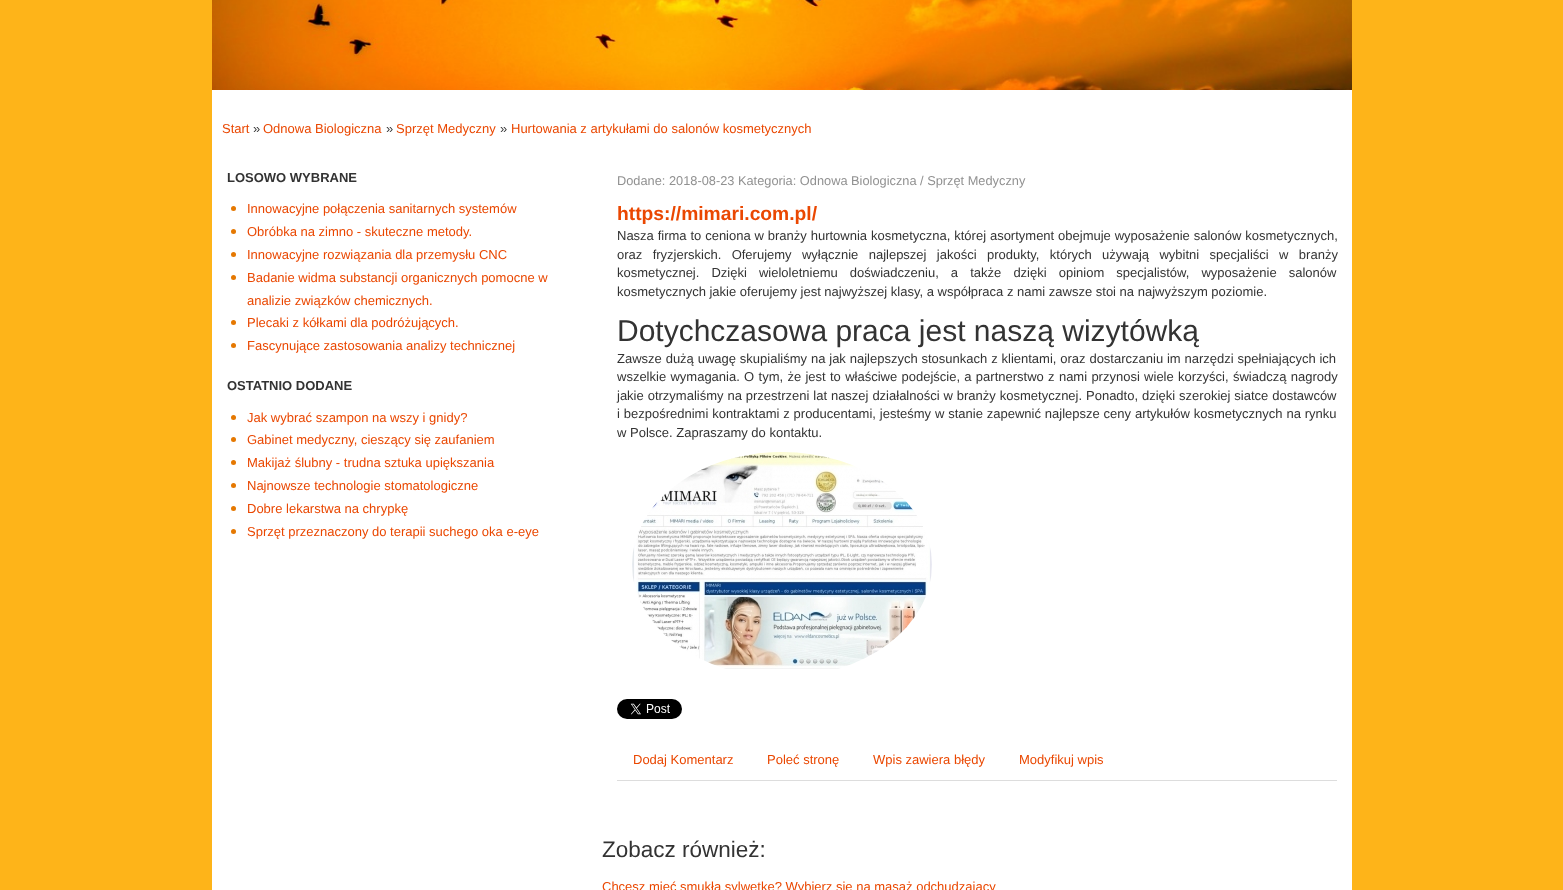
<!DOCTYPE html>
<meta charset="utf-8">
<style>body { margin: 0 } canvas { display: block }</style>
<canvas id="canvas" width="1563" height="890"></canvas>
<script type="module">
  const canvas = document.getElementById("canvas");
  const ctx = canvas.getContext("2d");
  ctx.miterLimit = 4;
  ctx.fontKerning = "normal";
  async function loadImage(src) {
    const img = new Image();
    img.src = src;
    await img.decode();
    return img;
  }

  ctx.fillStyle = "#feb419";
  ctx.fillRect(0, 0, 1563, 890);
  ctx.drawImage(await loadImage("img1.png"), 212, 0, 1140, 90);
  ctx.fillStyle = "#ffffff";
  ctx.fillRect(212, 90, 1140, 800);
  ctx.font = "13px Liberation Sans";
  ctx.fillStyle = "#ea4701";
  ctx.fillText("Start", 222, 133);
  ctx.fillStyle = "#333333";
  ctx.fillText("»", 253, 133);
  ctx.fillStyle = "#ea4701";
  ctx.fillText("Odnowa Biologiczna", 263, 133);
  ctx.fillStyle = "#333333";
  ctx.fillText("»", 386, 133);
  ctx.fillStyle = "#ea4701";
  ctx.fillText("Sprzęt Medyczny", 396, 133);
  ctx.fillStyle = "#333333";
  ctx.fillText("»", 500, 133);
  ctx.fillStyle = "#ea4701";
  ctx.fillText("Hurtowania z artykułami do salonów kosmetycznych", 511, 133);
  ctx.font = "bold 13px Liberation Sans";
  ctx.fillStyle = "#333333";
  ctx.fillText("LOSOWO WYBRANE", 227, 182);
  ctx.fillStyle = "#e57801";
  ctx.beginPath();
  ctx.arc(233.5, 208.5, 2.5, 0, Math.PI * 2);
  ctx.fill();
  ctx.font = "13px Liberation Sans";
  ctx.fillStyle = "#ea4701";
  ctx.fillText("Innowacyjne połączenia sanitarnych systemów", 247, 213);
  ctx.fillStyle = "#e57801";
  ctx.beginPath();
  ctx.arc(233.5, 231.5, 2.5, 0, Math.PI * 2);
  ctx.fill();
  ctx.fillStyle = "#ea4701";
  ctx.fillText("Obróbka na zimno - skuteczne metody.", 247, 236);
  ctx.fillStyle = "#e57801";
  ctx.beginPath();
  ctx.arc(233.5, 254.5, 2.5, 0, Math.PI * 2);
  ctx.fill();
  ctx.fillStyle = "#ea4701";
  ctx.fillText("Innowacyjne rozwiązania dla przemysłu CNC", 247, 259);
  ctx.fillStyle = "#e57801";
  ctx.beginPath();
  ctx.arc(233.5, 277.5, 2.5, 0, Math.PI * 2);
  ctx.fill();
  ctx.fillStyle = "#ea4701";
  ctx.fillText("Badanie widma substancji organicznych pomocne w", 247, 282);
  ctx.fillText("analizie związków chemicznych.", 247, 305);
  ctx.fillStyle = "#e57801";
  ctx.beginPath();
  ctx.arc(233.5, 322.5, 2.5, 0, Math.PI * 2);
  ctx.fill();
  ctx.fillStyle = "#ea4701";
  ctx.fillText("Plecaki z kółkami dla podróżujących.", 247, 327);
  ctx.fillStyle = "#e57801";
  ctx.beginPath();
  ctx.arc(233.5, 345.5, 2.5, 0, Math.PI * 2);
  ctx.fill();
  ctx.fillStyle = "#ea4701";
  ctx.fillText("Fascynujące zastosowania analizy technicznej", 247, 350);
  ctx.font = "bold 13px Liberation Sans";
  ctx.fillStyle = "#333333";
  ctx.fillText("OSTATNIO DODANE", 227, 390);
  ctx.fillStyle = "#e57801";
  ctx.beginPath();
  ctx.arc(233.5, 417.5, 2.5, 0, Math.PI * 2);
  ctx.fill();
  ctx.font = "13px Liberation Sans";
  ctx.fillStyle = "#ea4701";
  ctx.fillText("Jak wybrać szampon na wszy i gnidy?", 247, 422);
  ctx.fillStyle = "#e57801";
  ctx.beginPath();
  ctx.arc(233.5, 439.5, 2.5, 0, Math.PI * 2);
  ctx.fill();
  ctx.fillStyle = "#ea4701";
  ctx.fillText("Gabinet medyczny, cieszący się zaufaniem", 247, 444);
  ctx.fillStyle = "#e57801";
  ctx.beginPath();
  ctx.arc(233.5, 462.5, 2.5, 0, Math.PI * 2);
  ctx.fill();
  ctx.fillStyle = "#ea4701";
  ctx.fillText("Makijaż ślubny - trudna sztuka upiększania", 247, 467);
  ctx.fillStyle = "#e57801";
  ctx.beginPath();
  ctx.arc(233.5, 485.5, 2.5, 0, Math.PI * 2);
  ctx.fill();
  ctx.fillStyle = "#ea4701";
  ctx.fillText("Najnowsze technologie stomatologiczne", 247, 490);
  ctx.fillStyle = "#e57801";
  ctx.beginPath();
  ctx.arc(233.5, 508.5, 2.5, 0, Math.PI * 2);
  ctx.fill();
  ctx.fillStyle = "#ea4701";
  ctx.fillText("Dobre lekarstwa na chrypkę", 247, 513);
  ctx.fillStyle = "#e57801";
  ctx.beginPath();
  ctx.arc(233.5, 531.5, 2.5, 0, Math.PI * 2);
  ctx.fill();
  ctx.fillStyle = "#ea4701";
  ctx.fillText("Sprzęt przeznaczony do terapii suchego oka e-eye", 247, 536);
  ctx.font = "12.8px Liberation Sans";
  ctx.fillStyle = "#919191";
  ctx.fillText("Dodane: 2018-08-23 Kategoria: Odnowa Biologiczna / Sprzęt Medyczny", 617, 185);
  ctx.font = "bold 19.25px Liberation Sans";
  ctx.fillStyle = "#ea4701";
  ctx.fillText("https://mimari.com.pl/", 617, 220);
  ctx.wordSpacing = "0.25px";
  ctx.font = "13px Liberation Sans";
  ctx.fillStyle = "#333333";
  ctx.fillText("Nasza firma to ceniona w branży hurtownia kosmetyczna, której asortyment obejmuje wyposażenie salonów kosmetycznych,", 617, 240);
  ctx.wordSpacing = "6.75px";
  ctx.fillText("oraz fryzjerskich. Oferujemy wyłącznie najlepszej jakości produkty, których używają wybitni specjaliści w branży", 617, 259);
  ctx.wordSpacing = "8.5px";
  ctx.fillText("kosmetycznej. Dzięki wieloletniemu doświadczeniu, a także dzięki opiniom specjalistów, wyposażenie salonów", 617, 277);
  ctx.wordSpacing = "0px";
  ctx.fillText("kosmetycznych jakie oferujemy jest najwyższej klasy, a współpraca z nami zawsze stoi na najwyższym poziomie.", 617, 296);
  ctx.font = "30px Liberation Sans";
  ctx.fillText("Dotychczasowa praca jest naszą wizytówką", 617, 341);
  ctx.wordSpacing = "0.25px";
  ctx.font = "13px Liberation Sans";
  ctx.fillText("Zawsze dużą uwagę skupialiśmy na jak najlepszych stosunkach z klientami, oraz dostarczaniu im narzędzi spełniających ich", 617, 363);
  ctx.wordSpacing = "0.7px";
  ctx.fillText("wszelkie wymagania. O tym, że jest to właściwe podejście, a partnerstwo z nami przynosi wiele korzyści, świadczą nagrody", 617, 381);
  ctx.wordSpacing = "0.3px";
  ctx.fillText("jakie otrzymaliśmy na przestrzeni lat naszej działalności w branży kosmetycznej. Ponadto, dzięki szerokiej siatce dostawców", 617, 400);
  ctx.wordSpacing = "0.25px";
  ctx.fillText("i bezpośrednimi kontraktami z producentami, jesteśmy w stanie zapewnić najlepsze ceny artykułów kosmetycznych na rynku", 617, 418);
  ctx.wordSpacing = "0px";
  ctx.fillText("w Polsce. Zapraszamy do kontaktu.", 617, 437);
  ctx.drawImage(await loadImage("img2.png"), 632, 452, 300, 217);
  ctx.drawImage(await loadImage("img3.png"), 617, 699, 65, 20);
  ctx.fillStyle = "#dddddd";
  ctx.fillRect(617, 780, 720, 1);
  ctx.fillStyle = "#ea4701";
  ctx.fillText("Dodaj Komentarz", 633, 764);
  ctx.fillText("Poleć stronę", 767, 764);
  ctx.fillText("Wpis zawiera błędy", 873, 764);
  ctx.fillText("Modyfikuj wpis", 1019, 764);
  ctx.font = "22.5px Liberation Sans";
  ctx.fillStyle = "#333333";
  ctx.fillText("Zobacz również:", 602, 857);
  ctx.font = "13px Liberation Sans";
  ctx.fillStyle = "#ea4701";
  ctx.fillText("Chcesz mieć smukłą sylwetkę? Wybierz się na masaż odchudzający", 602, 891);
</script>
